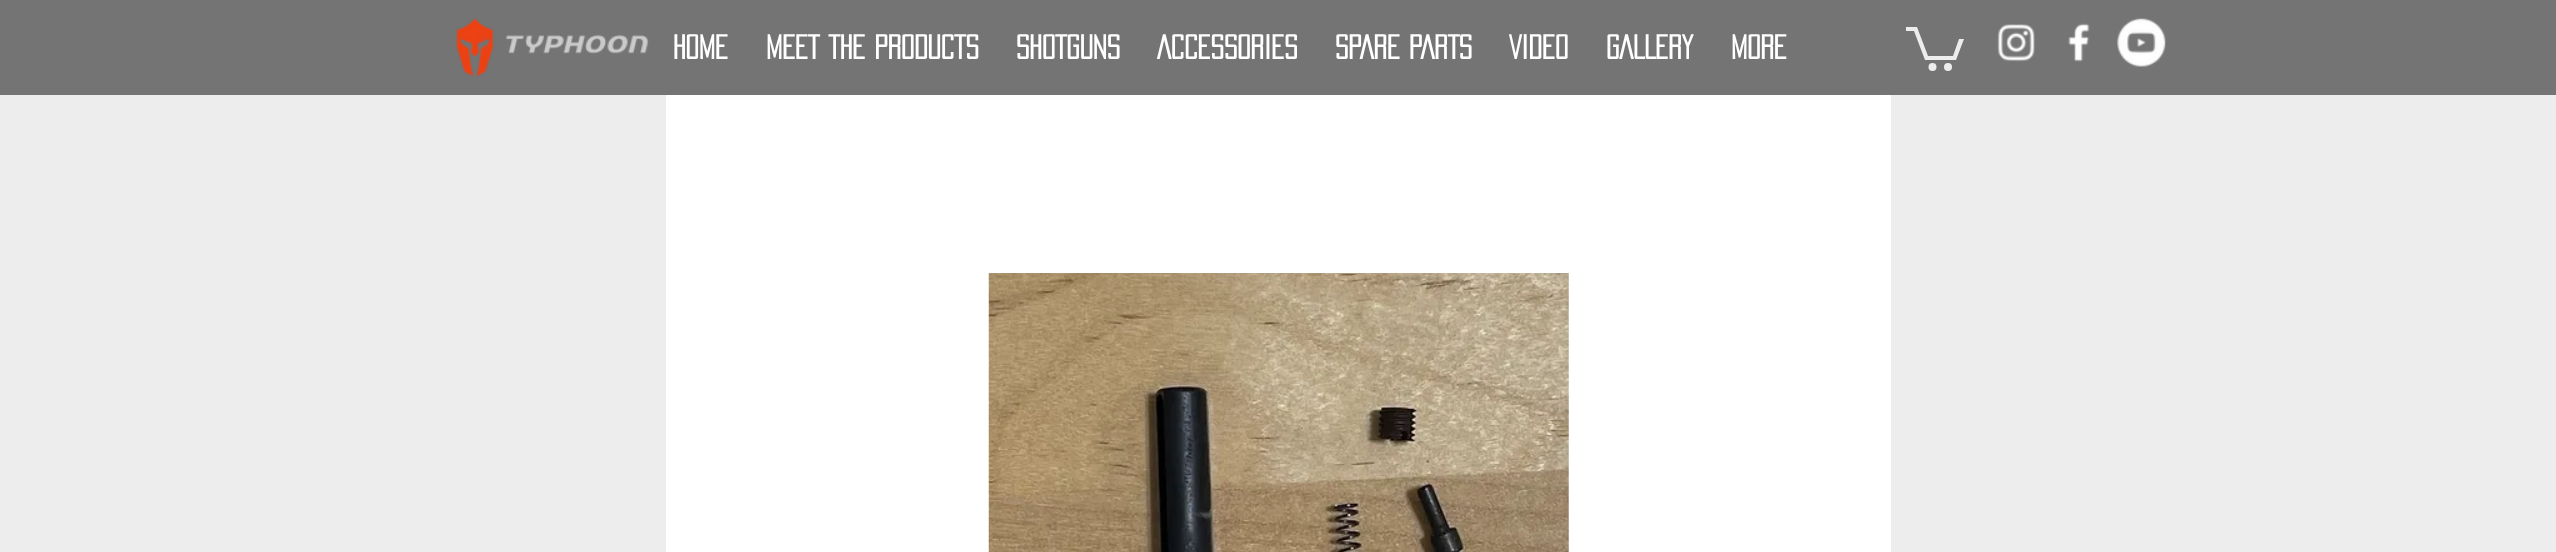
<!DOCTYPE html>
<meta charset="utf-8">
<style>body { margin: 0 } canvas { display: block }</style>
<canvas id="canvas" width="2556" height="552"></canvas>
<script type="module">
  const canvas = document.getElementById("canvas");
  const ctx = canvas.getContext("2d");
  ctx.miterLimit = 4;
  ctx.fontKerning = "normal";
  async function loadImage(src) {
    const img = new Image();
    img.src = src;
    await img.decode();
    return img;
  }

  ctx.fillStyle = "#ededee";
  ctx.fillRect(0, 0, 2556, 552);
  ctx.fillStyle = "#747475";
  ctx.fillRect(0, 0, 2556, 95);
  ctx.drawImage(await loadImage("img1.png"), 456, 18, 193, 59);
  ctx.font = "bold 30px 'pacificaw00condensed'";
  ctx.fillStyle = "#ffffff";
  ctx.fillText("HOME", 673, 59);
  ctx.fillText("MEET THE PRODUCTS", 766, 59);
  ctx.fillText("SHOTGUNS", 1016, 59);
  ctx.fillText("ACCESSORIES", 1157, 59);
  ctx.fillText("SPARE PARTS", 1335, 59);
  ctx.fillText("VIDEO", 1509, 59);
  ctx.fillText("GALLERY", 1606, 59);
  ctx.fillText("More", 1731, 59);
  ctx.fillStyle = "#ededee";
  ctx.beginPath();
  ctx.moveTo(1964, 39);
  ctx.lineTo(1956, 60);
  ctx.lineTo(1925, 60);
  ctx.lineTo(1914, 31);
  ctx.lineTo(1906, 31);
  ctx.lineTo(1906, 27);
  ctx.lineTo(1917, 27);
  ctx.lineTo(1928, 56);
  ctx.lineTo(1953, 56);
  ctx.lineTo(1959, 39);
  ctx.fill();
  ctx.beginPath();
  ctx.arc(1948, 67, 4, 0, Math.PI * 2);
  ctx.fill();
  ctx.beginPath();
  ctx.arc(1932.5, 67, 4, 0, Math.PI * 2);
  ctx.fill();
  ctx.drawImage(await loadImage("img2.png"), 1997, 24, 38, 38);
  ctx.drawImage(await loadImage("img3.png"), 2068, 23, 22, 39);
  ctx.drawImage(await loadImage("img4.png"), 2117, 18, 49, 49);
  ctx.fillStyle = "#ffffff";
  ctx.fillRect(666, 95, 1225, 457);
  ctx.drawImage(await loadImage("img5.png"), 988, 273, 581, 279);
</script>
